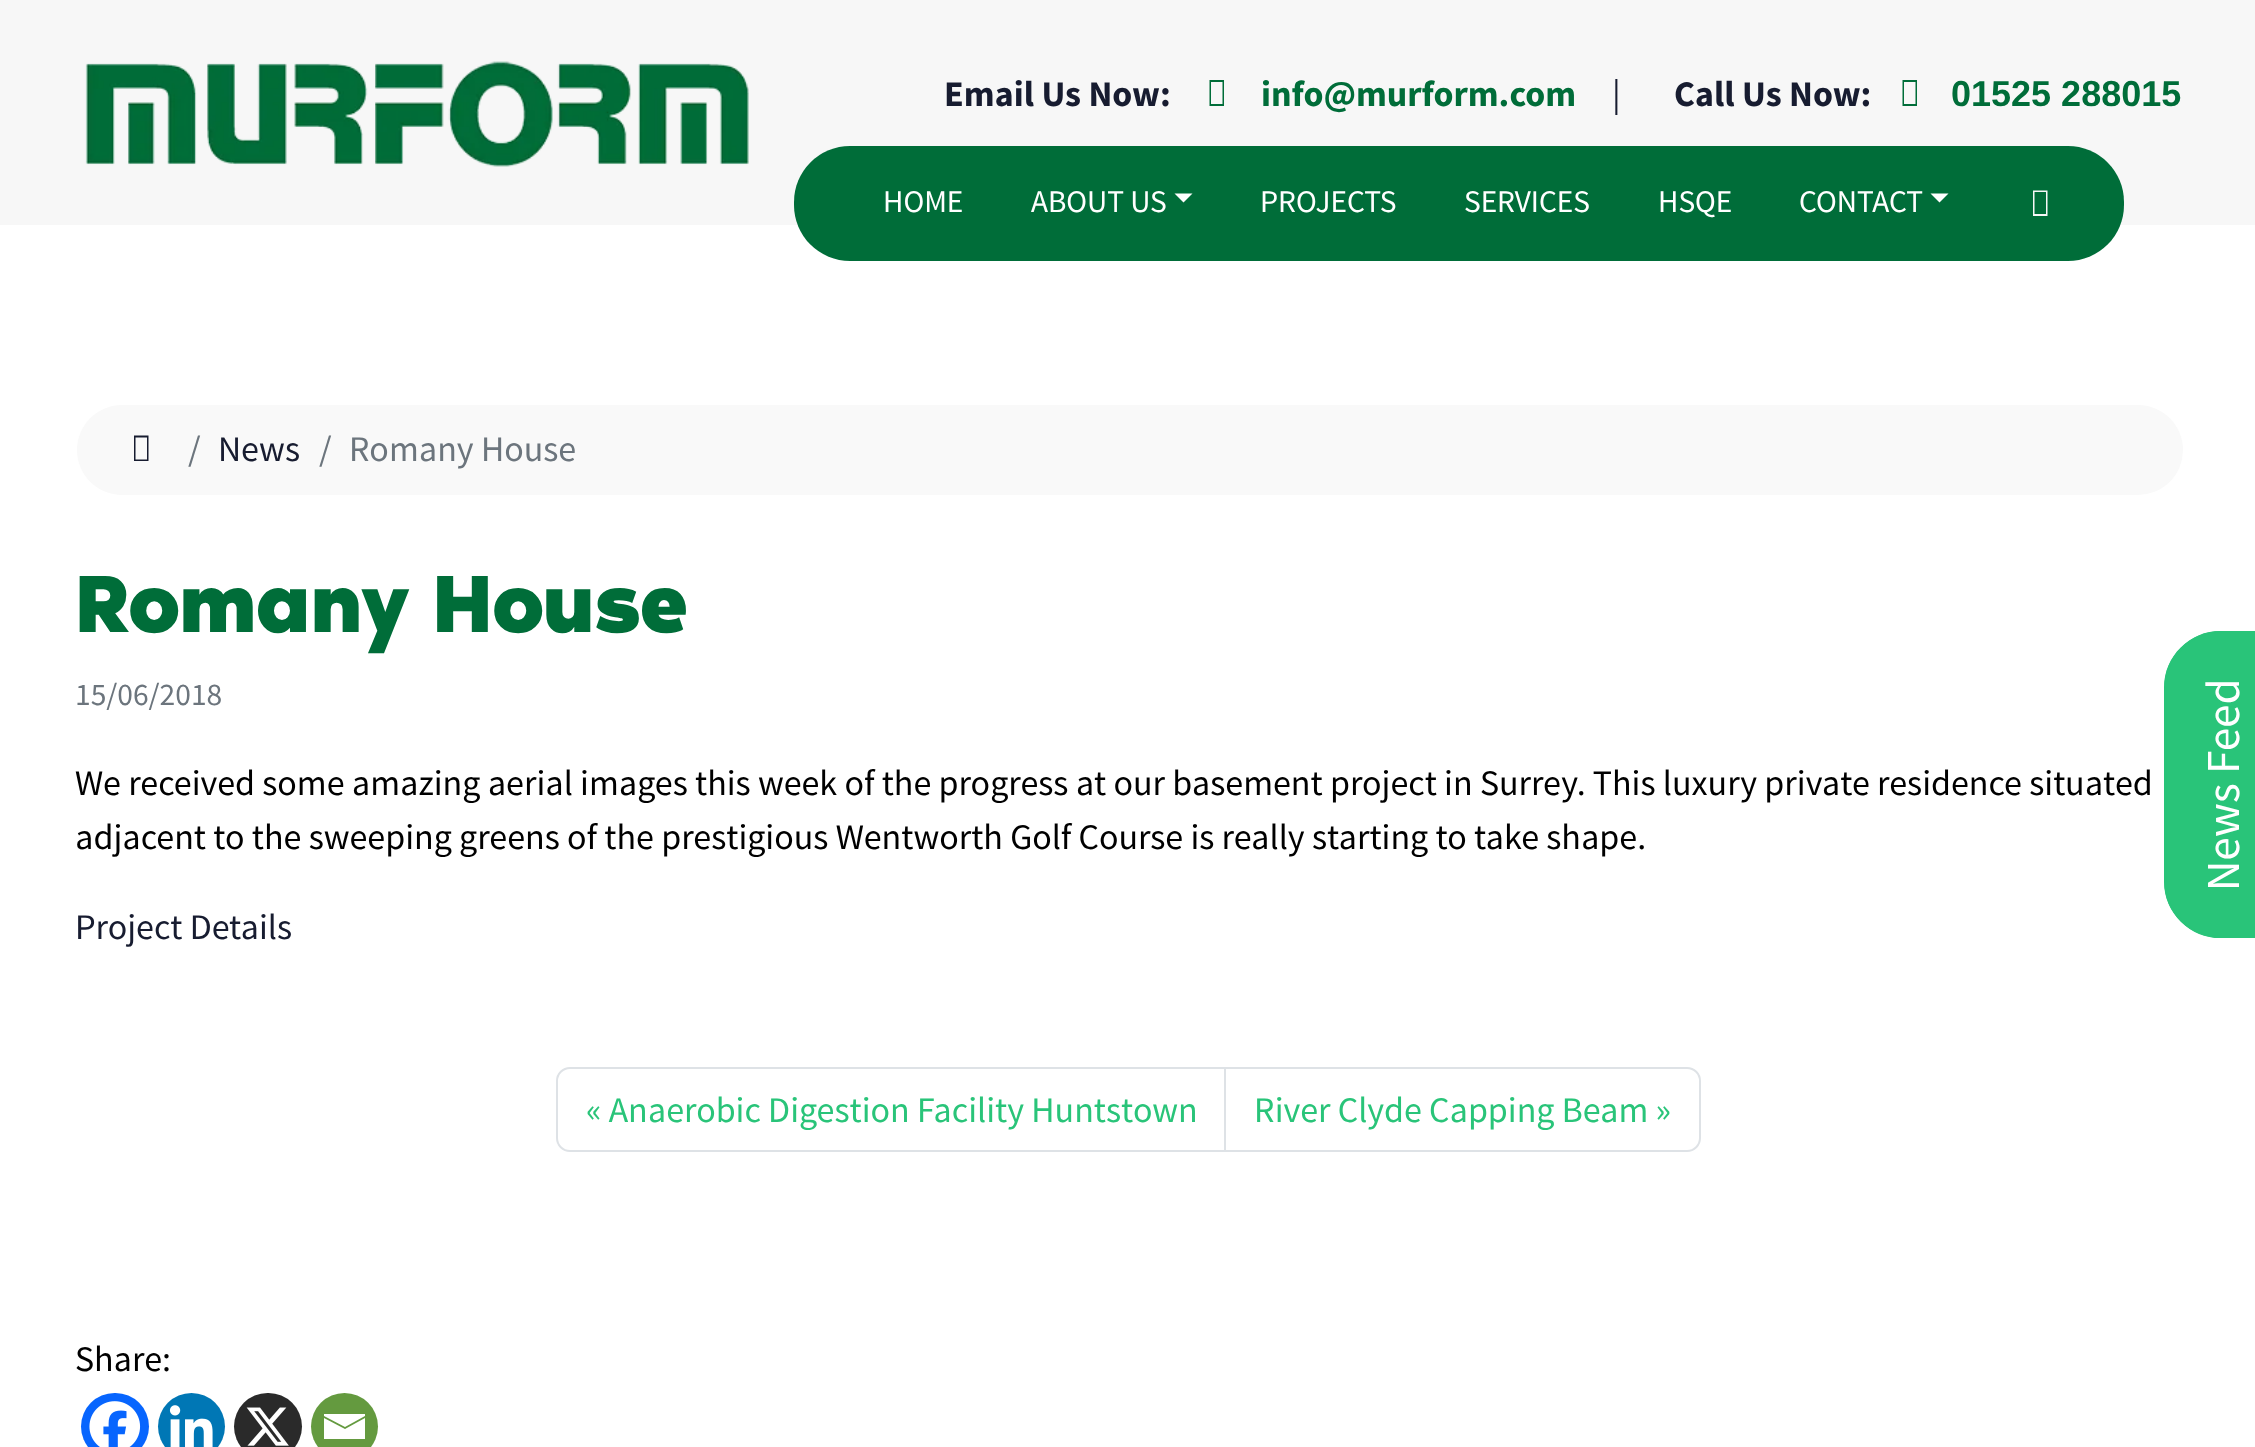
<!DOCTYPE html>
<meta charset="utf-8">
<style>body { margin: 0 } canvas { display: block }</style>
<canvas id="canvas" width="2255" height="1447"></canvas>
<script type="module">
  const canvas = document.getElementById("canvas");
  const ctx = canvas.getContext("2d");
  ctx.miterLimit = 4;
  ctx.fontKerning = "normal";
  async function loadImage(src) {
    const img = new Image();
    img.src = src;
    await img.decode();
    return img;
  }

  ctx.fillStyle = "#ffffff";
  ctx.fillRect(0, 0, 2255, 1447);
  ctx.fillStyle = "#f7f7f7";
  ctx.fillRect(0, 0, 2255, 225);
  ctx.drawImage(await loadImage("img1.png"), 85, 61, 664, 106);
  ctx.font = "bold 36px Source Sans Pro";
  ctx.fillStyle = "#171c30";
  ctx.fillText("Email Us Now:", 944, 106);
  ctx.fillStyle = "#006d39";
  ctx.beginPath();
  ctx.moveTo(1209.5, 106);
  ctx.lineTo(1209.5, 80);
  ctx.lineTo(1224, 80);
  ctx.lineTo(1224, 106);
  ctx.closePath();
  ctx.moveTo(1211, 104);
  ctx.lineTo(1222.5, 104);
  ctx.lineTo(1222.5, 82);
  ctx.lineTo(1211, 82);
  ctx.closePath();
  ctx.fill();
  ctx.fillText("info@murform.com", 1261, 106);
  ctx.font = "36px Source Sans Pro";
  ctx.fillStyle = "#171c30";
  ctx.fillText("|", 1612, 106);
  ctx.font = "bold 36px Source Sans Pro";
  ctx.fillText("Call Us Now:", 1674, 106);
  ctx.fillStyle = "#006d39";
  ctx.beginPath();
  ctx.moveTo(1902.5, 106);
  ctx.lineTo(1902.5, 80);
  ctx.lineTo(1917, 80);
  ctx.lineTo(1917, 106);
  ctx.closePath();
  ctx.moveTo(1904, 104);
  ctx.lineTo(1915.5, 104);
  ctx.lineTo(1915.5, 82);
  ctx.lineTo(1904, 82);
  ctx.closePath();
  ctx.fill();
  ctx.font = "bold 36px Liberation Sans";
  ctx.fillText("01525 288015", 1951, 106);
  ctx.beginPath();
  ctx.roundRect(794, 146, 1330, 115, 56);
  ctx.fill();
  ctx.font = "31.5px Source Sans Pro";
  ctx.fillStyle = "#ffffff";
  ctx.fillText("HOME", 883, 212);
  ctx.fillText("ABOUT US", 1031, 212);
  ctx.beginPath();
  ctx.moveTo(1174.5, 193.5);
  ctx.lineTo(1192.5, 193.5);
  ctx.lineTo(1183.5, 202.5);
  ctx.closePath();
  ctx.fill();
  ctx.fillText("PROJECTS", 1260, 212);
  ctx.fillText("SERVICES", 1464, 212);
  ctx.fillText("HSQE", 1658, 212);
  ctx.fillText("CONTACT", 1799, 212);
  ctx.beginPath();
  ctx.moveTo(1930.5, 193.5);
  ctx.lineTo(1948.5, 193.5);
  ctx.lineTo(1939.5, 202.5);
  ctx.closePath();
  ctx.fill();
  ctx.fillStyle = "#f7f7f7";
  ctx.beginPath();
  ctx.moveTo(2033, 216);
  ctx.lineTo(2033, 190.5);
  ctx.lineTo(2047.5, 190.5);
  ctx.lineTo(2047.5, 216);
  ctx.closePath();
  ctx.moveTo(2034.5, 214);
  ctx.lineTo(2046, 214);
  ctx.lineTo(2046, 192);
  ctx.lineTo(2034.5, 192);
  ctx.closePath();
  ctx.fill();
  ctx.fillStyle = "#f9f9f9";
  ctx.beginPath();
  ctx.roundRect(77, 405, 2106, 90, 45);
  ctx.fill();
  ctx.fillStyle = "#171c30";
  ctx.beginPath();
  ctx.moveTo(134, 461);
  ctx.lineTo(134, 435.5);
  ctx.lineTo(148.5, 435.5);
  ctx.lineTo(148.5, 461);
  ctx.closePath();
  ctx.moveTo(135.5, 459.5);
  ctx.lineTo(147, 459.5);
  ctx.lineTo(147, 437.5);
  ctx.lineTo(135.5, 437.5);
  ctx.closePath();
  ctx.fill();
  ctx.font = "36px Source Sans Pro";
  ctx.fillStyle = "#6c757d";
  ctx.fillText("/", 188, 461);
  ctx.fillStyle = "#171c30";
  ctx.fillText("News", 218, 461);
  ctx.fillStyle = "#6c757d";
  ctx.fillText("/", 319, 461);
  ctx.fillText("Romany House", 349, 461);
  ctx.font = "bold 83.25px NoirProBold";
  ctx.fillStyle = "#006d39";
  ctx.fillText("Romany House", 75, 632);
  ctx.font = "31.5px Source Sans Pro";
  ctx.fillStyle = "#6c757d";
  ctx.fillText("15/06/2018", 75, 705);
  ctx.font = "36px Source Sans Pro";
  ctx.fillStyle = "#000000";
  ctx.fillText("We received some amazing aerial images this week of the progress at our basement project in Surrey. This luxury private residence situated", 75, 795);
  ctx.fillText("adjacent to the sweeping greens of the prestigious Wentworth Golf Course is really starting to take shape.", 75, 849);
  ctx.fillStyle = "#171c30";
  ctx.fillText("Project Details", 75, 939);
  ctx.beginPath();
  ctx.roundRect(557, 1068, 668, 83, [13, 0, 0, 13]);
  ctx.strokeStyle = "#dee2e6";
  ctx.lineWidth = 2;
  ctx.stroke();
  ctx.fillStyle = "#29c479";
  ctx.fillText("« Anaerobic Digestion Facility Huntstown", 586, 1122);
  ctx.fillStyle = "#ffffff";
  ctx.beginPath();
  ctx.roundRect(1225, 1068, 475, 83, [0, 13, 13, 0]);
  ctx.fill();
  ctx.stroke();
  ctx.fillStyle = "#29c479";
  ctx.fillText("River Clyde Capping Beam »", 1254, 1122);
  ctx.beginPath();
  ctx.moveTo(2164, 882);
  ctx.lineTo(2164, 687);
  ctx.bezierCurveTo(2164, 656, 2190, 631, 2221, 631);
  ctx.lineTo(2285, 631);
  ctx.lineTo(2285, 938);
  ctx.lineTo(2221, 938);
  ctx.bezierCurveTo(2190, 938, 2164, 913, 2164, 882);
  ctx.closePath();
  ctx.fill();
  ctx.beginPath();
  ctx.moveTo(2165.5, 882);
  ctx.lineTo(2165.5, 687.5);
  ctx.bezierCurveTo(2165.5, 657, 2190.5, 632, 2220.5, 632);
  ctx.lineTo(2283.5, 632);
  ctx.lineTo(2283.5, 937);
  ctx.lineTo(2220.5, 937);
  ctx.bezierCurveTo(2190.5, 937, 2165.5, 912.5, 2165.5, 882);
  ctx.closePath();
  ctx.strokeStyle = "#29c479";
  ctx.lineWidth = 2.2;
  ctx.stroke();
  ctx.font = "47.25px Source Sans Pro";
  ctx.fillStyle = "#ffffff";
  ctx.save();
  ctx.translate(2239, 891);
  ctx.rotate(-90 * Math.PI / 180);
  ctx.fillText("News Feed", 0, 0);
  ctx.restore();
  ctx.font = "36px Source Sans Pro";
  ctx.fillStyle = "#000000";
  ctx.fillText("Share:", 75, 1371);
  ctx.fillStyle = "#0765fe";
  ctx.beginPath();
  ctx.roundRect(81, 1393, 68, 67, 33.5);
  ctx.fill();
  ctx.drawImage(await loadImage("img2.png"), 89, 1401, 52, 46);
  ctx.fillStyle = "#0077b5";
  ctx.beginPath();
  ctx.arc(191.5, 1426.5, 33.5, 0, Math.PI * 2);
  ctx.fill();
  ctx.drawImage(await loadImage("img3.png"), 169, 1405, 44, 42);
  ctx.fillStyle = "#2a2a2a";
  ctx.beginPath();
  ctx.roundRect(234, 1393, 68, 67, 33.5);
  ctx.fill();
  ctx.drawImage(await loadImage("img4.png"), 246, 1407, 43, 39);
  ctx.fillStyle = "#649a3f";
  ctx.beginPath();
  ctx.arc(344.5, 1426.5, 33.5, 0, Math.PI * 2);
  ctx.fill();
  ctx.fillStyle = "#ffffff";
  ctx.beginPath();
  ctx.moveTo(322, 1414);
  ctx.lineTo(365, 1414);
  ctx.lineTo(365, 1416);
  ctx.lineTo(345, 1427);
  ctx.lineTo(324, 1416);
  ctx.lineTo(324, 1414);
  ctx.moveTo(324, 1418);
  ctx.lineTo(345, 1429);
  ctx.lineTo(365, 1418);
  ctx.lineTo(365, 1439);
  ctx.lineTo(324, 1439);
  ctx.lineTo(324, 1418);
  ctx.fill();
</script>
